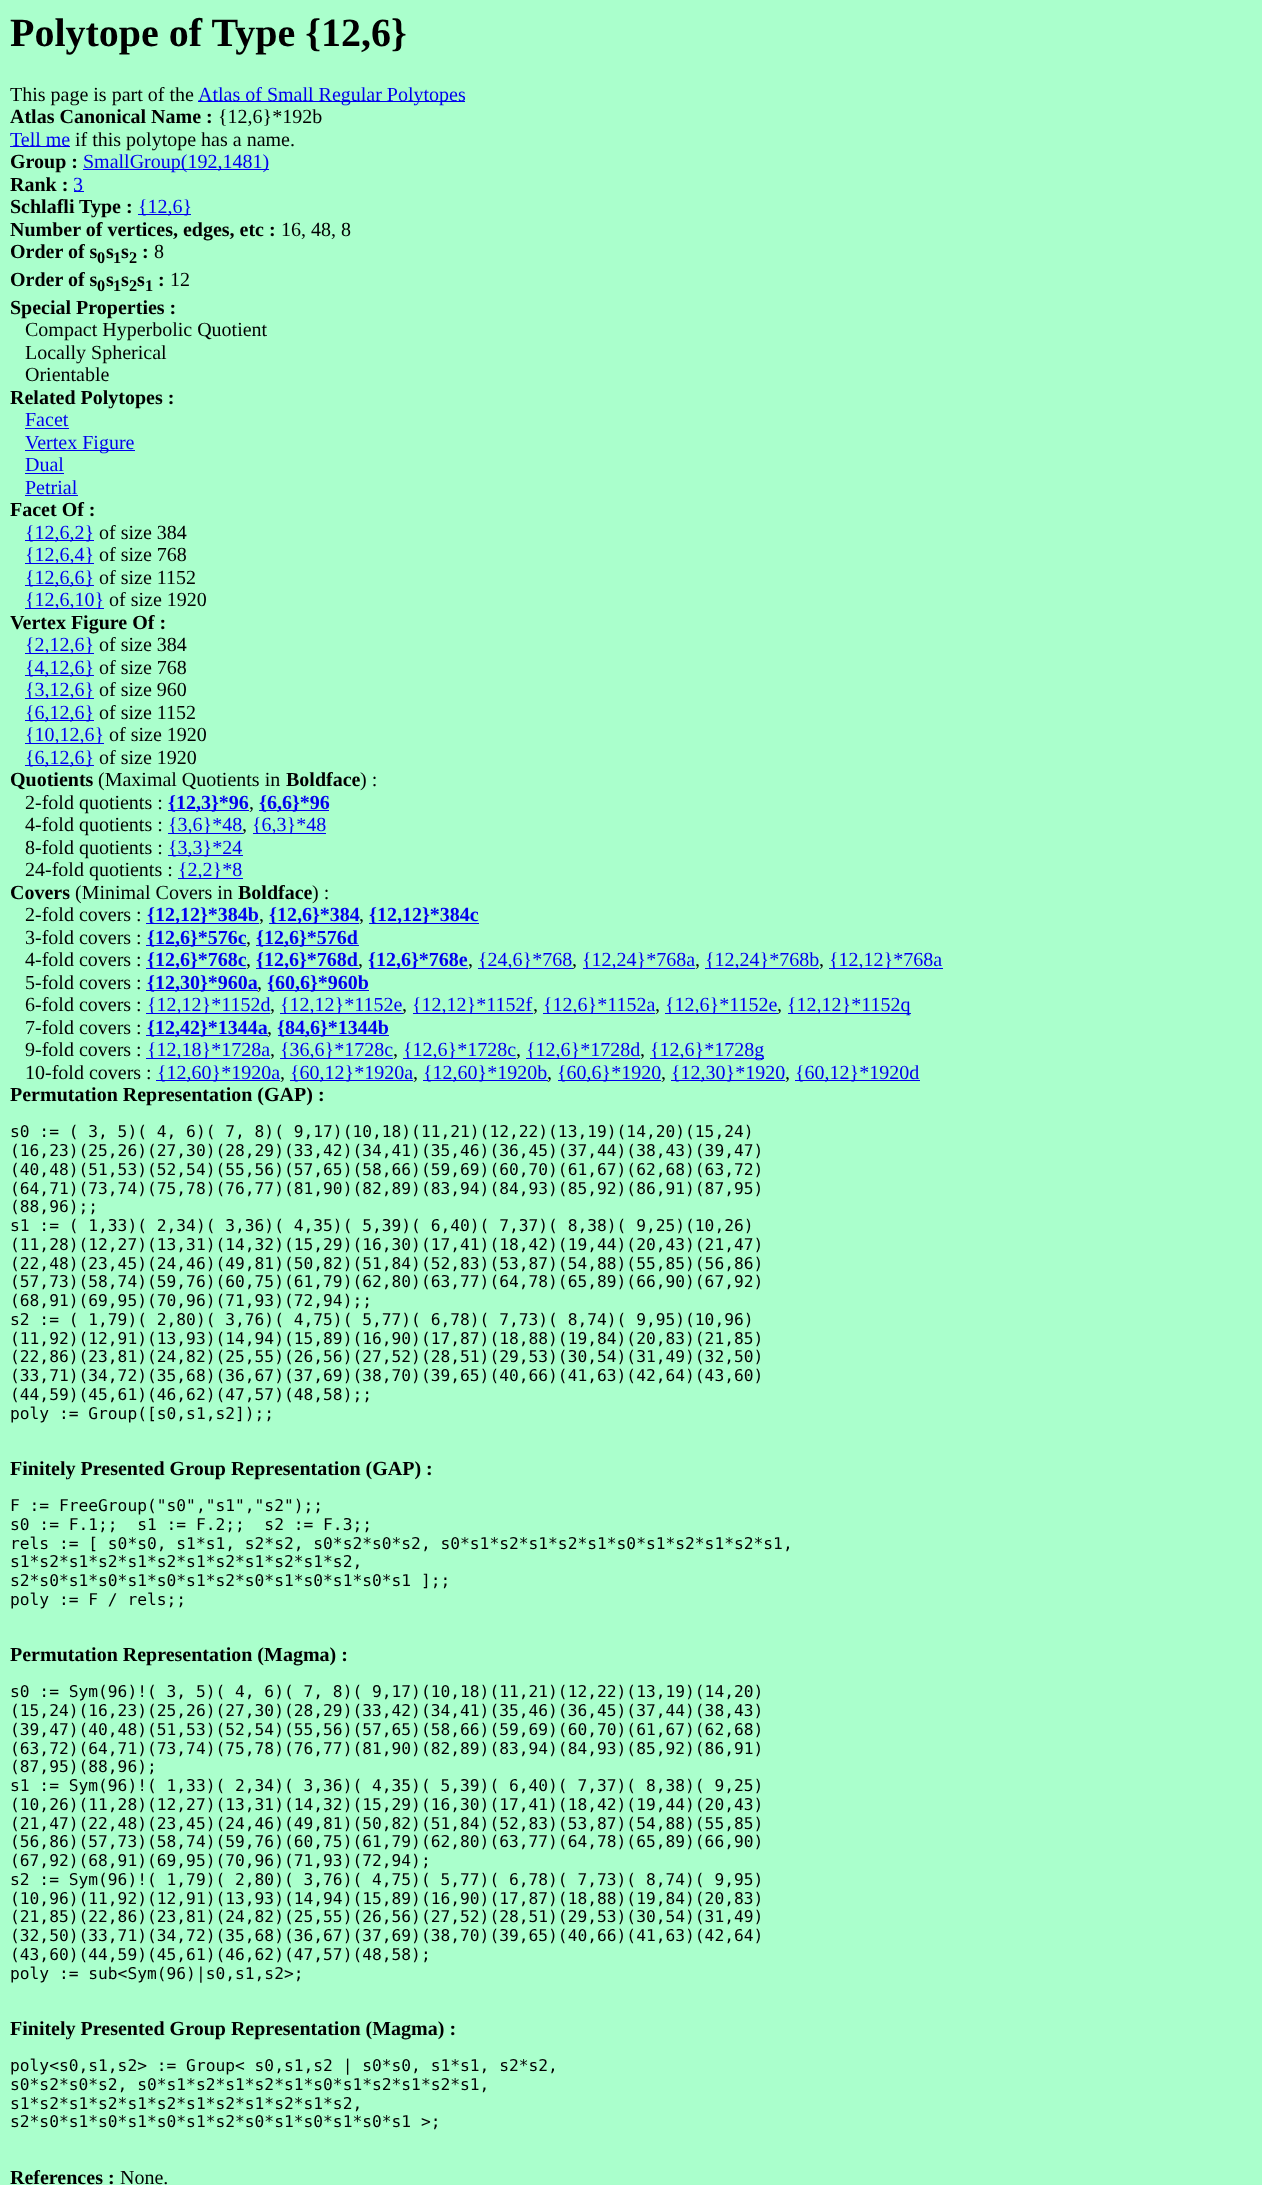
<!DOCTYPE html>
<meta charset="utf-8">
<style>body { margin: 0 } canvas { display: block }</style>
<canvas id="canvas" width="1262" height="2185"></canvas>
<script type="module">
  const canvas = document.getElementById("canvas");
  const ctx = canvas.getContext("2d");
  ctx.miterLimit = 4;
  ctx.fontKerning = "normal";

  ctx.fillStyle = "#aaffcc";
  ctx.fillRect(0, 0, 1262, 2185);
  ctx.font = "bold 40px Liberation Serif";
  ctx.fillStyle = "#000000";
  ctx.fillText("Polytope of Type {12,6}", 10, 46);
  ctx.font = "20px Liberation Serif";
  ctx.fillText("This page is part of the", 10, 101);
  ctx.fillStyle = "#0000ee";
  ctx.fillRect(198, 101, 267, 1);
  ctx.fillText("Atlas of Small Regular Polytopes", 198, 101);
  ctx.font = "bold 20px Liberation Serif";
  ctx.fillStyle = "#000000";
  ctx.fillText("Atlas Canonical Name :", 10, 123);
  ctx.font = "20px Liberation Serif";
  ctx.fillText("{12,6}*192b", 218, 123);
  ctx.fillStyle = "#0000ee";
  ctx.fillRect(10, 146, 60, 1);
  ctx.fillText("Tell me", 10, 146);
  ctx.fillStyle = "#000000";
  ctx.fillText("if this polytope has a name.", 75, 146);
  ctx.font = "bold 20px Liberation Serif";
  ctx.fillText("Group :", 10, 168);
  ctx.fillStyle = "#0000ee";
  ctx.fillRect(83, 169, 186, 1);
  ctx.font = "20px Liberation Serif";
  ctx.fillText("SmallGroup(192,1481)", 83, 168);
  ctx.font = "bold 20px Liberation Serif";
  ctx.fillStyle = "#000000";
  ctx.fillText("Rank :", 10, 191);
  ctx.fillStyle = "#0000ee";
  ctx.fillRect(74, 191, 10, 1);
  ctx.font = "20px Liberation Serif";
  ctx.fillText("3", 73, 191);
  ctx.font = "bold 20px Liberation Serif";
  ctx.fillStyle = "#000000";
  ctx.fillText("Schlafli Type :", 10, 213);
  ctx.fillStyle = "#0000ee";
  ctx.fillRect(138, 214, 53, 1);
  ctx.font = "20px Liberation Serif";
  ctx.fillText("{12,6}", 138, 213);
  ctx.font = "bold 20px Liberation Serif";
  ctx.fillStyle = "#000000";
  ctx.fillText("Number of vertices, edges, etc :", 10, 236);
  ctx.font = "20px Liberation Serif";
  ctx.fillText("16, 48, 8", 281, 236);
  ctx.font = "bold 20px Liberation Serif";
  ctx.fillText("Order of s", 10, 258);
  ctx.font = "bold 16.25px Liberation Serif";
  ctx.fillText("0", 97, 263);
  ctx.font = "bold 20px Liberation Serif";
  ctx.fillText("s", 106, 258);
  ctx.font = "bold 16.25px Liberation Serif";
  ctx.fillText("1", 113, 263);
  ctx.font = "bold 20px Liberation Serif";
  ctx.fillText("s", 121, 258);
  ctx.font = "bold 16.25px Liberation Serif";
  ctx.fillText("2", 129, 263);
  ctx.font = "bold 20px Liberation Serif";
  ctx.fillText(":", 142, 258);
  ctx.font = "20px Liberation Serif";
  ctx.fillText("8", 154, 258);
  ctx.font = "bold 20px Liberation Serif";
  ctx.fillText("Order of s", 10, 286);
  ctx.font = "bold 16.25px Liberation Serif";
  ctx.fillText("0", 97, 291);
  ctx.font = "bold 20px Liberation Serif";
  ctx.fillText("s", 106, 286);
  ctx.font = "bold 16.25px Liberation Serif";
  ctx.fillText("1", 113, 291);
  ctx.font = "bold 20px Liberation Serif";
  ctx.fillText("s", 121, 286);
  ctx.font = "bold 16.25px Liberation Serif";
  ctx.fillText("2", 129, 291);
  ctx.font = "bold 20px Liberation Serif";
  ctx.fillText("s", 137, 286);
  ctx.font = "bold 16.25px Liberation Serif";
  ctx.fillText("1", 145, 291);
  ctx.font = "bold 20px Liberation Serif";
  ctx.fillText(":", 158, 286);
  ctx.font = "20px Liberation Serif";
  ctx.fillText("12", 170, 286);
  ctx.font = "bold 20px Liberation Serif";
  ctx.fillText("Special Properties :", 10, 314);
  ctx.font = "20px Liberation Serif";
  ctx.fillText("Compact Hyperbolic Quotient", 25, 336);
  ctx.fillText("Locally Spherical", 25, 359);
  ctx.fillText("Orientable", 25, 381);
  ctx.font = "bold 20px Liberation Serif";
  ctx.fillText("Related Polytopes :", 10, 404);
  ctx.font = "20px Liberation Serif";
  ctx.fillStyle = "#0000ee";
  ctx.fillText("Facet", 25, 426);
  ctx.fillRect(25, 428, 44, 1);
  ctx.fillRect(25, 450, 110, 1);
  ctx.fillText("Vertex Figure", 25, 449);
  ctx.fillText("Dual", 25, 471);
  ctx.fillRect(25, 473, 39, 1);
  ctx.fillText("Petrial", 25, 494);
  ctx.fillRect(25, 495, 53, 1);
  ctx.font = "bold 20px Liberation Serif";
  ctx.fillStyle = "#000000";
  ctx.fillText("Facet Of :", 10, 516);
  ctx.fillStyle = "#0000ee";
  ctx.fillRect(25, 540, 69, 1);
  ctx.font = "20px Liberation Serif";
  ctx.fillText("{12,6,2}", 25, 539);
  ctx.fillStyle = "#000000";
  ctx.fillText("of size 384", 99, 539);
  ctx.fillStyle = "#0000ee";
  ctx.fillRect(25, 563, 69, 1);
  ctx.fillText("{12,6,4}", 25, 561);
  ctx.fillStyle = "#000000";
  ctx.fillText("of size 768", 99, 561);
  ctx.fillStyle = "#0000ee";
  ctx.fillRect(25, 585, 69, 1);
  ctx.fillText("{12,6,6}", 25, 584);
  ctx.fillStyle = "#000000";
  ctx.fillText("of size 1152", 99, 584);
  ctx.fillStyle = "#0000ee";
  ctx.fillRect(25, 608, 79, 1);
  ctx.fillText("{12,6,10}", 25, 606);
  ctx.fillStyle = "#000000";
  ctx.fillText("of size 1920", 109, 606);
  ctx.font = "bold 20px Liberation Serif";
  ctx.fillText("Vertex Figure Of :", 10, 629);
  ctx.fillStyle = "#0000ee";
  ctx.fillRect(25, 653, 69, 1);
  ctx.font = "20px Liberation Serif";
  ctx.fillText("{2,12,6}", 25, 651);
  ctx.fillStyle = "#000000";
  ctx.fillText("of size 384", 99, 651);
  ctx.fillStyle = "#0000ee";
  ctx.fillRect(25, 675, 69, 1);
  ctx.fillText("{4,12,6}", 25, 674);
  ctx.fillStyle = "#000000";
  ctx.fillText("of size 768", 99, 674);
  ctx.fillStyle = "#0000ee";
  ctx.fillRect(25, 698, 69, 1);
  ctx.fillText("{3,12,6}", 25, 696);
  ctx.fillStyle = "#000000";
  ctx.fillText("of size 960", 99, 696);
  ctx.fillStyle = "#0000ee";
  ctx.fillRect(25, 720, 69, 1);
  ctx.fillText("{6,12,6}", 25, 719);
  ctx.fillStyle = "#000000";
  ctx.fillText("of size 1152", 99, 719);
  ctx.fillStyle = "#0000ee";
  ctx.fillRect(25, 743, 79, 1);
  ctx.fillText("{10,12,6}", 25, 741);
  ctx.fillStyle = "#000000";
  ctx.fillText("of size 1920", 109, 741);
  ctx.fillStyle = "#0000ee";
  ctx.fillRect(25, 765, 69, 1);
  ctx.fillText("{6,12,6}", 25, 764);
  ctx.fillStyle = "#000000";
  ctx.fillText("of size 1920", 99, 764);
  ctx.font = "bold 20px Liberation Serif";
  ctx.fillText("Quotients", 10, 786);
  ctx.font = "20px Liberation Serif";
  ctx.fillText("(Maximal Quotients in", 98, 786);
  ctx.font = "bold 20px Liberation Serif";
  ctx.fillText("Boldface", 286, 786);
  ctx.font = "20px Liberation Serif";
  ctx.fillText(") :", 360, 786);
  ctx.fillText("2-fold quotients :", 25, 809);
  ctx.fillStyle = "#0000ee";
  ctx.fillRect(168, 810, 81, 1);
  ctx.font = "bold 20px Liberation Serif";
  ctx.fillText("{12,3}*96", 168, 809);
  ctx.font = "20px Liberation Serif";
  ctx.fillStyle = "#000000";
  ctx.fillText(",", 249, 809);
  ctx.fillStyle = "#0000ee";
  ctx.fillRect(259, 810, 70, 1);
  ctx.font = "bold 20px Liberation Serif";
  ctx.fillText("{6,6}*96", 259, 809);
  ctx.font = "20px Liberation Serif";
  ctx.fillStyle = "#000000";
  ctx.fillText("4-fold quotients :", 25, 831);
  ctx.fillStyle = "#0000ee";
  ctx.fillRect(168, 833, 75, 1);
  ctx.fillText("{3,6}*48", 168, 831);
  ctx.fillStyle = "#000000";
  ctx.fillText(",", 242, 831);
  ctx.fillStyle = "#0000ee";
  ctx.fillRect(253, 833, 73, 1);
  ctx.fillText("{6,3}*48", 252, 831);
  ctx.fillStyle = "#000000";
  ctx.fillText("8-fold quotients :", 25, 854);
  ctx.fillStyle = "#0000ee";
  ctx.fillRect(168, 855, 75, 1);
  ctx.fillText("{3,3}*24", 168, 854);
  ctx.fillStyle = "#000000";
  ctx.fillText("24-fold quotients :", 25, 876);
  ctx.fillStyle = "#0000ee";
  ctx.fillRect(178, 878, 65, 1);
  ctx.fillText("{2,2}*8", 178, 876);
  ctx.font = "bold 20px Liberation Serif";
  ctx.fillStyle = "#000000";
  ctx.fillText("Covers", 10, 899);
  ctx.font = "20px Liberation Serif";
  ctx.fillText("(Minimal Covers in", 75, 899);
  ctx.font = "bold 20px Liberation Serif";
  ctx.fillText("Boldface", 238, 899);
  ctx.font = "20px Liberation Serif";
  ctx.fillText(") :", 312, 899);
  ctx.fillText("2-fold covers :", 25, 921);
  ctx.fillStyle = "#0000ee";
  ctx.fillRect(146, 923, 113, 1);
  ctx.font = "bold 20px Liberation Serif";
  ctx.fillText("{12,12}*384b", 147, 921);
  ctx.font = "20px Liberation Serif";
  ctx.fillStyle = "#000000";
  ctx.fillText(",", 259, 921);
  ctx.fillStyle = "#0000ee";
  ctx.fillRect(269, 923, 90, 1);
  ctx.font = "bold 20px Liberation Serif";
  ctx.fillText("{12,6}*384", 269, 921);
  ctx.font = "20px Liberation Serif";
  ctx.fillStyle = "#000000";
  ctx.fillText(",", 359, 921);
  ctx.fillStyle = "#0000ee";
  ctx.fillRect(369, 923, 110, 1);
  ctx.font = "bold 20px Liberation Serif";
  ctx.fillText("{12,12}*384c", 369, 921);
  ctx.font = "20px Liberation Serif";
  ctx.fillStyle = "#000000";
  ctx.fillText("3-fold covers :", 25, 944);
  ctx.fillStyle = "#0000ee";
  ctx.fillRect(146, 945, 100, 1);
  ctx.font = "bold 20px Liberation Serif";
  ctx.fillText("{12,6}*576c", 147, 944);
  ctx.font = "20px Liberation Serif";
  ctx.fillStyle = "#000000";
  ctx.fillText(",", 246, 944);
  ctx.fillStyle = "#0000ee";
  ctx.fillRect(256, 945, 103, 1);
  ctx.font = "bold 20px Liberation Serif";
  ctx.fillText("{12,6}*576d", 256, 944);
  ctx.font = "20px Liberation Serif";
  ctx.fillStyle = "#000000";
  ctx.fillText("4-fold covers :", 25, 966);
  ctx.fillStyle = "#0000ee";
  ctx.fillRect(146, 968, 100, 1);
  ctx.font = "bold 20px Liberation Serif";
  ctx.fillText("{12,6}*768c", 147, 966);
  ctx.font = "20px Liberation Serif";
  ctx.fillStyle = "#000000";
  ctx.fillText(",", 246, 966);
  ctx.fillStyle = "#0000ee";
  ctx.fillRect(256, 968, 103, 1);
  ctx.font = "bold 20px Liberation Serif";
  ctx.fillText("{12,6}*768d", 256, 966);
  ctx.font = "20px Liberation Serif";
  ctx.fillStyle = "#000000";
  ctx.fillText(",", 358, 966);
  ctx.fillStyle = "#0000ee";
  ctx.fillRect(369, 968, 99, 1);
  ctx.font = "bold 20px Liberation Serif";
  ctx.fillText("{12,6}*768e", 368, 966);
  ctx.font = "20px Liberation Serif";
  ctx.fillStyle = "#000000";
  ctx.fillText(",", 468, 966);
  ctx.fillStyle = "#0000ee";
  ctx.fillRect(478, 968, 95, 1);
  ctx.fillText("{24,6}*768", 478, 966);
  ctx.fillStyle = "#000000";
  ctx.fillText(",", 572, 966);
  ctx.fillStyle = "#0000ee";
  ctx.fillRect(583, 968, 112, 1);
  ctx.fillText("{12,24}*768a", 582, 966);
  ctx.fillStyle = "#000000";
  ctx.fillText(",", 695, 966);
  ctx.fillStyle = "#0000ee";
  ctx.fillRect(705, 968, 114, 1);
  ctx.fillText("{12,24}*768b", 705, 966);
  ctx.fillStyle = "#000000";
  ctx.fillText(",", 819, 966);
  ctx.fillStyle = "#0000ee";
  ctx.fillRect(829, 968, 114, 1);
  ctx.fillText("{12,12}*768a", 829, 966);
  ctx.fillStyle = "#000000";
  ctx.fillText("5-fold covers :", 25, 989);
  ctx.fillStyle = "#0000ee";
  ctx.fillRect(146, 990, 112, 1);
  ctx.font = "bold 20px Liberation Serif";
  ctx.fillText("{12,30}*960a", 147, 989);
  ctx.font = "20px Liberation Serif";
  ctx.fillStyle = "#000000";
  ctx.fillText(",", 257, 989);
  ctx.fillStyle = "#0000ee";
  ctx.fillRect(268, 990, 101, 1);
  ctx.font = "bold 20px Liberation Serif";
  ctx.fillText("{60,6}*960b", 267, 989);
  ctx.font = "20px Liberation Serif";
  ctx.fillStyle = "#000000";
  ctx.fillText("6-fold covers :", 25, 1011);
  ctx.fillStyle = "#0000ee";
  ctx.fillRect(146, 1013, 124, 1);
  ctx.fillText("{12,12}*1152d", 147, 1011);
  ctx.fillStyle = "#000000";
  ctx.fillText(",", 270, 1011);
  ctx.fillStyle = "#0000ee";
  ctx.fillRect(280, 1013, 123, 1);
  ctx.fillText("{12,12}*1152e", 280, 1011);
  ctx.fillStyle = "#000000";
  ctx.fillText(",", 402, 1011);
  ctx.fillStyle = "#0000ee";
  ctx.fillRect(413, 1013, 120, 1);
  ctx.fillText("{12,12}*1152f", 412, 1011);
  ctx.fillStyle = "#000000";
  ctx.fillText(",", 533, 1011);
  ctx.fillStyle = "#0000ee";
  ctx.fillRect(543, 1013, 112, 1);
  ctx.fillText("{12,6}*1152a", 543, 1011);
  ctx.fillStyle = "#000000";
  ctx.fillText(",", 655, 1011);
  ctx.fillStyle = "#0000ee";
  ctx.fillRect(665, 1013, 113, 1);
  ctx.fillText("{12,6}*1152e", 665, 1011);
  ctx.fillStyle = "#000000";
  ctx.fillText(",", 777, 1011);
  ctx.fillStyle = "#0000ee";
  ctx.fillRect(788, 1013, 123, 1);
  ctx.fillText("{12,12}*1152q", 787, 1011);
  ctx.fillStyle = "#000000";
  ctx.fillText("7-fold covers :", 25, 1034);
  ctx.fillStyle = "#0000ee";
  ctx.fillRect(146, 1035, 122, 1);
  ctx.font = "bold 20px Liberation Serif";
  ctx.fillText("{12,42}*1344a", 147, 1034);
  ctx.font = "20px Liberation Serif";
  ctx.fillStyle = "#000000";
  ctx.fillText(",", 267, 1034);
  ctx.fillStyle = "#0000ee";
  ctx.fillRect(278, 1035, 111, 1);
  ctx.font = "bold 20px Liberation Serif";
  ctx.fillText("{84,6}*1344b", 277, 1034);
  ctx.font = "20px Liberation Serif";
  ctx.fillStyle = "#000000";
  ctx.fillText("9-fold covers :", 25, 1056);
  ctx.fillStyle = "#0000ee";
  ctx.fillRect(146, 1058, 124, 1);
  ctx.fillText("{12,18}*1728a", 147, 1056);
  ctx.fillStyle = "#000000";
  ctx.fillText(",", 270, 1056);
  ctx.fillStyle = "#0000ee";
  ctx.fillRect(280, 1058, 113, 1);
  ctx.fillText("{36,6}*1728c", 280, 1056);
  ctx.fillStyle = "#000000";
  ctx.fillText(",", 393, 1056);
  ctx.fillStyle = "#0000ee";
  ctx.fillRect(403, 1058, 113, 1);
  ctx.fillText("{12,6}*1728c", 403, 1056);
  ctx.fillStyle = "#000000";
  ctx.fillText(",", 516, 1056);
  ctx.fillStyle = "#0000ee";
  ctx.fillRect(526, 1058, 114, 1);
  ctx.fillText("{12,6}*1728d", 526, 1056);
  ctx.fillStyle = "#000000";
  ctx.fillText(",", 640, 1056);
  ctx.fillStyle = "#0000ee";
  ctx.fillRect(650, 1058, 114, 1);
  ctx.fillText("{12,6}*1728g", 650, 1056);
  ctx.fillStyle = "#000000";
  ctx.fillText("10-fold covers :", 25, 1079);
  ctx.fillStyle = "#0000ee";
  ctx.fillRect(156, 1080, 124, 1);
  ctx.fillText("{12,60}*1920a", 157, 1079);
  ctx.fillStyle = "#000000";
  ctx.fillText(",", 280, 1079);
  ctx.fillStyle = "#0000ee";
  ctx.fillRect(290, 1080, 123, 1);
  ctx.fillText("{60,12}*1920a", 290, 1079);
  ctx.fillStyle = "#000000";
  ctx.fillText(",", 413, 1079);
  ctx.fillStyle = "#0000ee";
  ctx.fillRect(423, 1080, 125, 1);
  ctx.fillText("{12,60}*1920b", 423, 1079);
  ctx.fillStyle = "#000000";
  ctx.fillText(",", 547, 1079);
  ctx.fillStyle = "#0000ee";
  ctx.fillRect(558, 1080, 103, 1);
  ctx.fillText("{60,6}*1920", 557, 1079);
  ctx.fillStyle = "#000000";
  ctx.fillText(",", 661, 1079);
  ctx.fillStyle = "#0000ee";
  ctx.fillRect(671, 1080, 114, 1);
  ctx.fillText("{12,30}*1920", 671, 1079);
  ctx.fillStyle = "#000000";
  ctx.fillText(",", 785, 1079);
  ctx.fillStyle = "#0000ee";
  ctx.fillRect(795, 1080, 125, 1);
  ctx.fillText("{60,12}*1920d", 795, 1079);
  ctx.font = "bold 20px Liberation Serif";
  ctx.fillStyle = "#000000";
  ctx.fillText("Permutation Representation (GAP) :", 10, 1101);
  ctx.font = "16.25px DejaVu Sans Mono";
  ctx.fillText("s0 := ( 3, 5)( 4, 6)( 7, 8)( 9,17)(10,18)(11,21)(12,22)(13,19)(14,20)(15,24)", 10, 1137);
  ctx.fillText("(16,23)(25,26)(27,30)(28,29)(33,42)(34,41)(35,46)(36,45)(37,44)(38,43)(39,47)", 10, 1156);
  ctx.fillText("(40,48)(51,53)(52,54)(55,56)(57,65)(58,66)(59,69)(60,70)(61,67)(62,68)(63,72)", 10, 1175);
  ctx.fillText("(64,71)(73,74)(75,78)(76,77)(81,90)(82,89)(83,94)(84,93)(85,92)(86,91)(87,95)", 10, 1194);
  ctx.fillText("(88,96);;", 10, 1212);
  ctx.fillText("s1 := ( 1,33)( 2,34)( 3,36)( 4,35)( 5,39)( 6,40)( 7,37)( 8,38)( 9,25)(10,26)", 10, 1231);
  ctx.fillText("(11,28)(12,27)(13,31)(14,32)(15,29)(16,30)(17,41)(18,42)(19,44)(20,43)(21,47)", 10, 1250);
  ctx.fillText("(22,48)(23,45)(24,46)(49,81)(50,82)(51,84)(52,83)(53,87)(54,88)(55,85)(56,86)", 10, 1269);
  ctx.fillText("(57,73)(58,74)(59,76)(60,75)(61,79)(62,80)(63,77)(64,78)(65,89)(66,90)(67,92)", 10, 1287);
  ctx.fillText("(68,91)(69,95)(70,96)(71,93)(72,94);;", 10, 1306);
  ctx.fillText("s2 := ( 1,79)( 2,80)( 3,76)( 4,75)( 5,77)( 6,78)( 7,73)( 8,74)( 9,95)(10,96)", 10, 1325);
  ctx.fillText("(11,92)(12,91)(13,93)(14,94)(15,89)(16,90)(17,87)(18,88)(19,84)(20,83)(21,85)", 10, 1344);
  ctx.fillText("(22,86)(23,81)(24,82)(25,55)(26,56)(27,52)(28,51)(29,53)(30,54)(31,49)(32,50)", 10, 1362);
  ctx.fillText("(33,71)(34,72)(35,68)(36,67)(37,69)(38,70)(39,65)(40,66)(41,63)(42,64)(43,60)", 10, 1381);
  ctx.fillText("(44,59)(45,61)(46,62)(47,57)(48,58);;", 10, 1400);
  ctx.fillText("poly := Group([s0,s1,s2]);;", 10, 1419);
  ctx.font = "bold 20px Liberation Serif";
  ctx.fillText("Finitely Presented Group Representation (GAP) :", 10, 1475);
  ctx.font = "16.25px DejaVu Sans Mono";
  ctx.fillText("F := FreeGroup(\"s0\",\"s1\",\"s2\");;", 10, 1511);
  ctx.fillText("s0 := F.1;;  s1 := F.2;;  s2 := F.3;;", 10, 1530);
  ctx.fillText("rels := [ s0*s0, s1*s1, s2*s2, s0*s2*s0*s2, s0*s1*s2*s1*s2*s1*s0*s1*s2*s1*s2*s1,", 10, 1549);
  ctx.fillText("s1*s2*s1*s2*s1*s2*s1*s2*s1*s2*s1*s2,", 10, 1567);
  ctx.fillText("s2*s0*s1*s0*s1*s0*s1*s2*s0*s1*s0*s1*s0*s1 ];;", 10, 1586);
  ctx.fillText("poly := F / rels;;", 10, 1605);
  ctx.font = "bold 20px Liberation Serif";
  ctx.fillText("Permutation Representation (Magma) :", 10, 1661);
  ctx.font = "16.25px DejaVu Sans Mono";
  ctx.fillText("s0 := Sym(96)!( 3, 5)( 4, 6)( 7, 8)( 9,17)(10,18)(11,21)(12,22)(13,19)(14,20)", 10, 1697);
  ctx.fillText("(15,24)(16,23)(25,26)(27,30)(28,29)(33,42)(34,41)(35,46)(36,45)(37,44)(38,43)", 10, 1716);
  ctx.fillText("(39,47)(40,48)(51,53)(52,54)(55,56)(57,65)(58,66)(59,69)(60,70)(61,67)(62,68)", 10, 1735);
  ctx.fillText("(63,72)(64,71)(73,74)(75,78)(76,77)(81,90)(82,89)(83,94)(84,93)(85,92)(86,91)", 10, 1754);
  ctx.fillText("(87,95)(88,96);", 10, 1772);
  ctx.fillText("s1 := Sym(96)!( 1,33)( 2,34)( 3,36)( 4,35)( 5,39)( 6,40)( 7,37)( 8,38)( 9,25)", 10, 1791);
  ctx.fillText("(10,26)(11,28)(12,27)(13,31)(14,32)(15,29)(16,30)(17,41)(18,42)(19,44)(20,43)", 10, 1810);
  ctx.fillText("(21,47)(22,48)(23,45)(24,46)(49,81)(50,82)(51,84)(52,83)(53,87)(54,88)(55,85)", 10, 1829);
  ctx.fillText("(56,86)(57,73)(58,74)(59,76)(60,75)(61,79)(62,80)(63,77)(64,78)(65,89)(66,90)", 10, 1847);
  ctx.fillText("(67,92)(68,91)(69,95)(70,96)(71,93)(72,94);", 10, 1866);
  ctx.fillText("s2 := Sym(96)!( 1,79)( 2,80)( 3,76)( 4,75)( 5,77)( 6,78)( 7,73)( 8,74)( 9,95)", 10, 1885);
  ctx.fillText("(10,96)(11,92)(12,91)(13,93)(14,94)(15,89)(16,90)(17,87)(18,88)(19,84)(20,83)", 10, 1904);
  ctx.fillText("(21,85)(22,86)(23,81)(24,82)(25,55)(26,56)(27,52)(28,51)(29,53)(30,54)(31,49)", 10, 1922);
  ctx.fillText("(32,50)(33,71)(34,72)(35,68)(36,67)(37,69)(38,70)(39,65)(40,66)(41,63)(42,64)", 10, 1941);
  ctx.fillText("(43,60)(44,59)(45,61)(46,62)(47,57)(48,58);", 10, 1960);
  ctx.fillText("poly := sub<Sym(96)|s0,s1,s2>;", 10, 1979);
  ctx.font = "bold 20px Liberation Serif";
  ctx.fillText("Finitely Presented Group Representation (Magma) :", 10, 2035);
  ctx.font = "16.25px DejaVu Sans Mono";
  ctx.fillText("poly<s0,s1,s2> := Group< s0,s1,s2 | s0*s0, s1*s1, s2*s2,", 10, 2071);
  ctx.fillText("s0*s2*s0*s2, s0*s1*s2*s1*s2*s1*s0*s1*s2*s1*s2*s1,", 10, 2090);
  ctx.fillText("s1*s2*s1*s2*s1*s2*s1*s2*s1*s2*s1*s2,", 10, 2109);
  ctx.fillText("s2*s0*s1*s0*s1*s0*s1*s2*s0*s1*s0*s1*s0*s1 >;", 10, 2127);
  ctx.font = "bold 20px Liberation Serif";
  ctx.fillText("References :", 10, 2184);
  ctx.font = "20px Liberation Serif";
  ctx.fillText("None.", 120, 2184);
</script>
